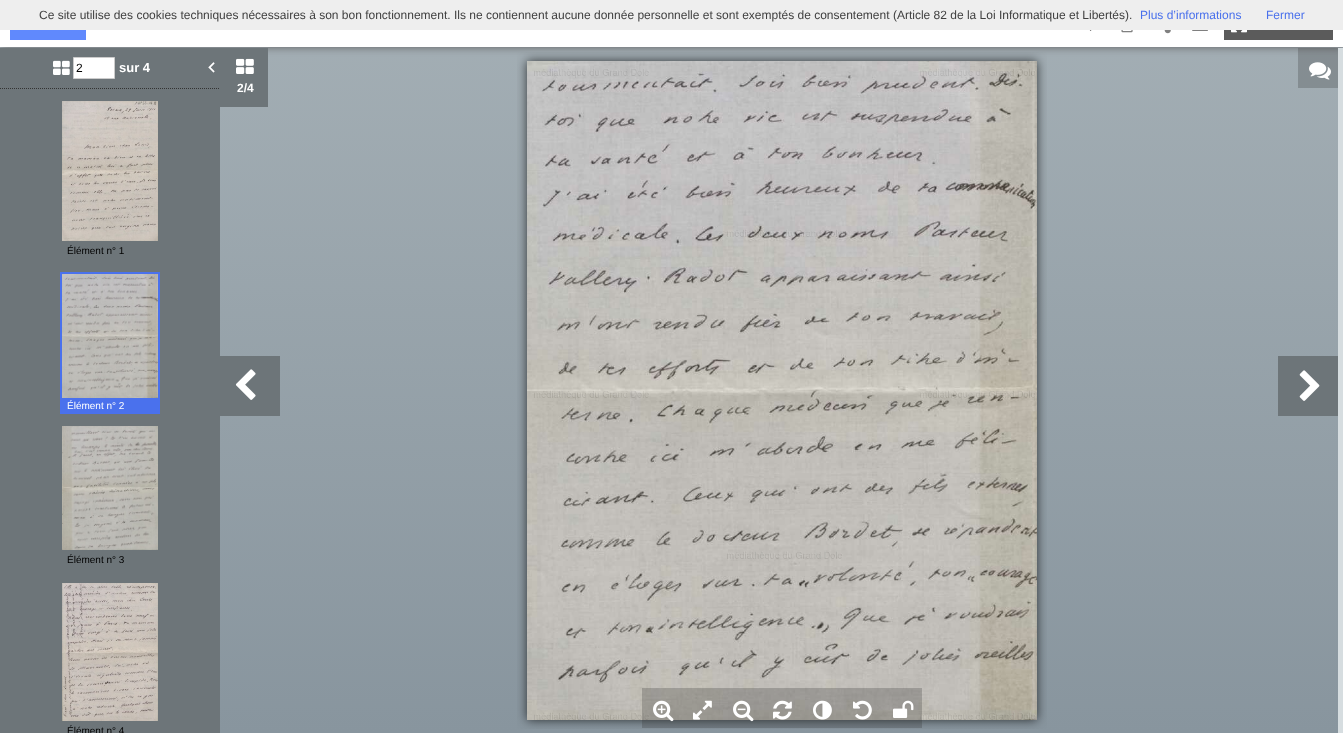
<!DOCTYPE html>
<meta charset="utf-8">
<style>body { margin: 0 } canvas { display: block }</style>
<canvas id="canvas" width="1343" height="733"></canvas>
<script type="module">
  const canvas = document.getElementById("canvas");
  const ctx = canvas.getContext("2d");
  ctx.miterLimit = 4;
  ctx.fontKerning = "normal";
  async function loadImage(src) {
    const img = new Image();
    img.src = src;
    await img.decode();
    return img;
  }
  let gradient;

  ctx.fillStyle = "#ffffff";
  ctx.fillRect(0, 0, 1343, 733);
  gradient = ctx.createLinearGradient(672, 0, 672, 733);
  gradient.addColorStop(0, "#a4afb5");
  gradient.addColorStop(1, "#88959e");
  ctx.fillStyle = gradient;
  ctx.fillRect(0, 47, 1343, 686);
  ctx.fillStyle = "#5f5f60";
  ctx.filter = "blur(4px)";
  ctx.beginPath();
  ctx.rect(0, 0, 1343, 47);
  ctx.fill();
  ctx.filter = "none";
  ctx.fillStyle = "#eeeeee";
  ctx.fillRect(0, 0, 1343, 30);
  ctx.font = "12px Liberation Sans";
  ctx.fillStyle = "#404040";
  ctx.fillText("Ce site utilise des cookies techniques nécessaires à son bon fonctionnement. Ils ne contiennent aucune donnée personnelle et sont exemptés de consentement (Article 82 de la Loi Informatique et Libertés).", 39, 19);
  ctx.fillStyle = "#4970ec";
  ctx.fillText("Plus d’informations", 1140, 19);
  ctx.fillText("Fermer", 1266, 19);
  ctx.fillStyle = "#ffffff";
  ctx.fillRect(0, 30, 1343, 17);
  ctx.fillStyle = "#6089fd";
  ctx.fillRect(10, 30, 76, 10);
  ctx.drawImage(await loadImage("img1.png"), 1089, 30, 3, 1);
  ctx.drawImage(await loadImage("img2.png"), 1121, 30, 12, 3);
  ctx.drawImage(await loadImage("img3.png"), 1164, 30, 7, 4);
  ctx.drawImage(await loadImage("img4.png"), 1192, 30, 16, 1);
  ctx.fillStyle = "#5b5b5b";
  ctx.fillRect(1224, 30, 109, 10);
  ctx.drawImage(await loadImage("img5.png"), 1231, 30, 16, 3);
  ctx.fillStyle = "#d6dde0";
  ctx.fillRect(1338, 48, 5, 685);
  ctx.fillStyle = "rgba(49, 49, 49, 0.25)";
  ctx.fillRect(1298, 48, 40, 40);
  ctx.drawImage(await loadImage("img6.png"), 1309, 62, 22, 18);
  ctx.fillStyle = "#6d7579";
  ctx.fillRect(0, 48, 220, 685);
  ctx.drawImage(await loadImage("img7.png"), 53, 60, 17, 15);
  ctx.fillStyle = "#ffffff";
  ctx.beginPath();
  ctx.rect(73.5, 57.5, 41, 21);
  ctx.fill();
  ctx.strokeStyle = "#cccccc";
  ctx.stroke();
  ctx.fillStyle = "#000000";
  ctx.fillText("2", 76, 72);
  ctx.font = "bold 13px Liberation Sans";
  ctx.fillStyle = "#ffffff";
  ctx.fillText("sur 4", 119, 72);
  ctx.drawImage(await loadImage("img8.png"), 208, 62, 7, 11);
  ctx.beginPath();
  ctx.moveTo(0, 88.5);
  ctx.lineTo(220, 88.5);
  ctx.strokeStyle = "#333333";
  ctx.setLineDash([1, 1]);
  ctx.stroke();
  ctx.drawImage(await loadImage("img9.png"), 62, 101, 96, 140);
  ctx.font = "10px Liberation Sans";
  ctx.fillStyle = "#000000";
  ctx.fillText("Élément n° 1", 67, 254);
  ctx.strokeStyle = "#4a71ed";
  ctx.lineWidth = 2;
  ctx.setLineDash([]);
  ctx.strokeRect(61, 273, 98, 140);
  ctx.drawImage(await loadImage("img10.png"), 62, 274, 96, 124);
  ctx.fillStyle = "#4a71ed";
  ctx.fillRect(62, 398, 96, 14);
  ctx.fillStyle = "#ffffff";
  ctx.fillText("Élément n° 2", 67, 409);
  ctx.drawImage(await loadImage("img11.png"), 62, 426, 96, 124);
  ctx.fillStyle = "#000000";
  ctx.fillText("Élément n° 3", 67, 563);
  ctx.drawImage(await loadImage("img12.png"), 62, 583, 96, 138);
  ctx.fillText("Élément n° 4", 67, 734);
  ctx.fillStyle = "#6d7579";
  ctx.fillRect(220, 48, 48, 59);
  ctx.drawImage(await loadImage("img13.png"), 236, 58, 18, 16);
  ctx.font = "bold 12px Liberation Sans";
  ctx.fillStyle = "#ffffff";
  ctx.fillText("2/4", 237, 92);
  ctx.fillStyle = "#6d7579";
  ctx.fillRect(220, 356, 60, 60);
  ctx.drawImage(await loadImage("img14.png"), 235, 369, 21, 31);
  ctx.drawImage(await loadImage("img15.png"), 517, 52, 530, 677);
  ctx.fillRect(1278, 356, 60, 60);
  ctx.drawImage(await loadImage("img16.png"), 1299, 370, 21, 31);
  ctx.fillStyle = "rgba(49, 49, 49, 0.25)";
  ctx.fillRect(642, 688, 40, 40);
  ctx.drawImage(await loadImage("img17.png"), 653, 700, 21, 22);
  ctx.fillRect(682, 688, 40, 40);
  ctx.drawImage(await loadImage("img18.png"), 693, 700, 19, 20);
  ctx.fillRect(722, 688, 40, 40);
  ctx.drawImage(await loadImage("img19.png"), 733, 700, 21, 22);
  ctx.fillRect(762, 688, 40, 40);
  ctx.drawImage(await loadImage("img20.png"), 773, 700, 19, 20);
  ctx.fillRect(802, 688, 40, 40);
  ctx.drawImage(await loadImage("img21.png"), 813, 700, 19, 20);
  ctx.fillRect(842, 688, 40, 40);
  ctx.drawImage(await loadImage("img22.png"), 853, 700, 19, 20);
  ctx.fillRect(882, 688, 40, 40);
  ctx.drawImage(await loadImage("img23.png"), 893, 700, 21, 18);
</script>
